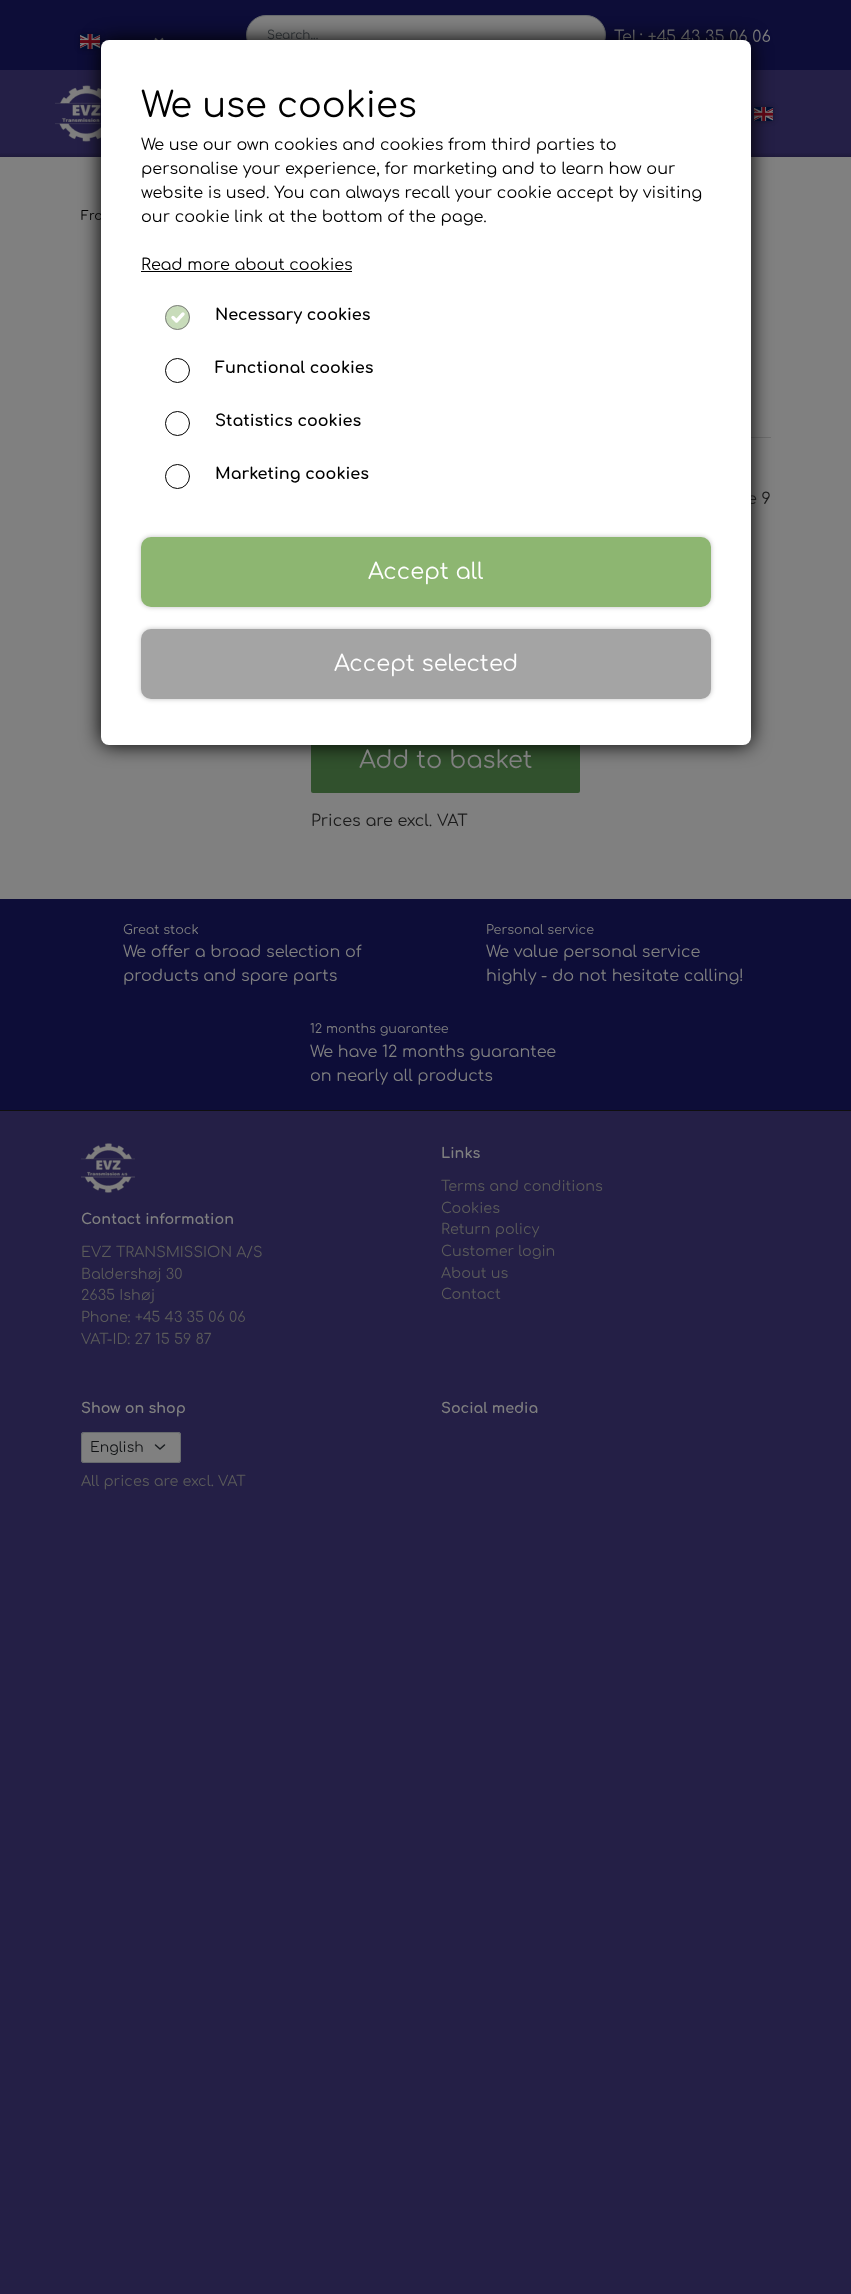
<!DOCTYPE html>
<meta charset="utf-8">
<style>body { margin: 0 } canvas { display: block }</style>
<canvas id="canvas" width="851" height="2294"></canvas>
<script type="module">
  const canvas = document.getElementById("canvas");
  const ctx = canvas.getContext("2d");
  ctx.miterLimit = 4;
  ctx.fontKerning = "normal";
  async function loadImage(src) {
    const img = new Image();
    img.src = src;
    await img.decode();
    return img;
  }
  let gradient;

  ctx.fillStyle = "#241f46";
  ctx.fillRect(0, 0, 851, 2294);
  ctx.fillStyle = "#0d0d38";
  ctx.fillRect(0, 0, 246, 70);
  ctx.fillStyle = "rgba(0, 0, 0, 0.3)";
  ctx.filter = "blur(2.5px)";
  ctx.beginPath();
  ctx.rect(80, 34, 20, 15);
  ctx.fill();
  ctx.filter = "none";
  ctx.drawImage(await loadImage("img1.png"), 80, 34, 20, 15);
  ctx.beginPath();
  ctx.moveTo(155, 38.5);
  ctx.lineTo(159, 42.5);
  ctx.lineTo(163, 38.5);
  ctx.strokeStyle = "#808080";
  ctx.lineWidth = 2;
  ctx.stroke();
  ctx.fillStyle = "#0d0d38";
  ctx.fillRect(246, 0, 360, 40);
  ctx.fillStyle = "#808080";
  ctx.beginPath();
  ctx.roundRect(246.5, 15.5, 359, 39, 19.5);
  ctx.fill();
  ctx.strokeStyle = "#676a6d";
  ctx.lineWidth = 1;
  ctx.stroke();
  ctx.font = "12px Comfortaa";
  ctx.fillStyle = "#363b3f";
  ctx.fillText("Search...", 267, 39);
  ctx.fillStyle = "#0d0d38";
  ctx.fillRect(606, 0, 245, 70);
  ctx.font = "16px Comfortaa";
  ctx.fillStyle = "#808080";
  ctx.fillText("Tel.: +45 43 35 06 06", 614, 42);
  ctx.drawImage(await loadImage("img2.png"), 55, 85, 46, 57);
  ctx.fillStyle = "rgba(0, 0, 0, 0.3)";
  ctx.filter = "blur(2.5px)";
  ctx.beginPath();
  ctx.rect(754, 107, 19, 14);
  ctx.fill();
  ctx.filter = "none";
  ctx.drawImage(await loadImage("img3.png"), 754, 107, 19, 14);
  gradient = ctx.createLinearGradient(426, 157, 426, 152);
  gradient.addColorStop(0, "#1f1a3b");
  gradient.addColorStop(1, "#241f46");
  ctx.fillStyle = gradient;
  ctx.fillRect(0, 153, 851, 4);
  ctx.fillStyle = "#808080";
  ctx.fillRect(0, 157, 851, 742);
  ctx.fillStyle = "#6f6f6f";
  ctx.fillRect(751, 437, 20, 1);
  ctx.fillStyle = "#31512d";
  ctx.beginPath();
  ctx.roundRect(311, 729, 269, 64, 2);
  ctx.fill();
  ctx.fillStyle = "#000000";
  ctx.filter = "blur(10px)";
  ctx.beginPath();
  ctx.roundRect(101, 40, 650, 705, 8);
  ctx.fill();
  ctx.filter = "none";
  ctx.font = "12.75px Comfortaa";
  ctx.fillText("Fro", 81, 220);
  ctx.font = "16px Comfortaa";
  ctx.fillStyle = "#1a1a1a";
  ctx.fillText("e 9", 747, 504);
  ctx.fillStyle = "#ffffff";
  ctx.beginPath();
  ctx.roundRect(101, 40, 650, 705, 8);
  ctx.fill();
  ctx.font = "35.25px Comfortaa";
  ctx.fillStyle = "#000000";
  ctx.fillText("We use cookies", 141, 117);
  ctx.font = "16px Comfortaa";
  ctx.fillText("We use our own cookies and cookies from third parties to", 141, 150);
  ctx.fillText("personalise your experience, for marketing and to learn how our", 141, 174);
  ctx.fillText("website is used. You can always recall your cookie accept by visiting", 141, 198);
  ctx.fillText("our cookie link at the bottom of the page.", 141, 222);
  ctx.fillText("Read more about cookies", 141, 270);
  ctx.fillRect(141, 271, 211, 1);
  ctx.fillStyle = "#c8dcba";
  ctx.beginPath();
  ctx.arc(177.5, 317.5, 12.5, 0, Math.PI * 2);
  ctx.fill();
  ctx.beginPath();
  ctx.moveTo(173, 317.5);
  ctx.lineTo(176.5, 321);
  ctx.lineTo(183, 314);
  ctx.strokeStyle = "#ffffff";
  ctx.lineWidth = 3.4;
  ctx.lineCap = "round";
  ctx.lineJoin = "round";
  ctx.stroke();
  ctx.beginPath();
  ctx.arc(177.5, 317.5, 12, 0, Math.PI * 2);
  ctx.strokeStyle = "#808080";
  ctx.lineWidth = 1;
  ctx.stroke();
  ctx.font = "bold 16px Comfortaa";
  ctx.fillStyle = "#000000";
  ctx.fillText("Necessary cookies", 215, 320);
  ctx.beginPath();
  ctx.arc(177.5, 370.5, 12, 0, Math.PI * 2);
  ctx.strokeStyle = "#000000";
  ctx.stroke();
  ctx.fillText("Functional cookies", 215, 373);
  ctx.beginPath();
  ctx.arc(177.5, 423.5, 12, 0, Math.PI * 2);
  ctx.stroke();
  ctx.fillText("Statistics cookies", 215, 426);
  ctx.beginPath();
  ctx.arc(177.5, 476.5, 12, 0, Math.PI * 2);
  ctx.stroke();
  ctx.fillText("Marketing cookies", 215, 479);
  ctx.fillStyle = "rgba(0, 0, 0, 0.25)";
  ctx.filter = "blur(2.5px)";
  ctx.beginPath();
  ctx.roundRect(141, 537, 570, 70, 10);
  ctx.fill();
  ctx.filter = "none";
  ctx.fillStyle = "#8db671";
  ctx.beginPath();
  ctx.roundRect(141, 537, 570, 70, 10);
  ctx.fill();
  ctx.font = "22.5px Comfortaa";
  ctx.fillStyle = "#ffffff";
  ctx.fillText("Accept all", 368, 579);
  ctx.fillStyle = "rgba(0, 0, 0, 0.25)";
  ctx.filter = "blur(2.5px)";
  ctx.beginPath();
  ctx.roundRect(141, 629, 570, 70, 10);
  ctx.fill();
  ctx.filter = "none";
  ctx.fillStyle = "#a4a4a4";
  ctx.beginPath();
  ctx.roundRect(141, 629, 570, 70, 10);
  ctx.fill();
  ctx.fillStyle = "#ffffff";
  ctx.fillText("Accept selected", 334, 671);
  ctx.font = "24px Comfortaa";
  ctx.fillStyle = "#808080";
  ctx.fillText("Add to basket", 359, 768);
  ctx.font = "16px Comfortaa";
  ctx.fillStyle = "#1a1a1a";
  ctx.fillText("Prices are excl. VAT", 311, 826);
  ctx.fillStyle = "#0d0d38";
  ctx.fillRect(0, 899, 851, 211);
  ctx.font = "12.75px Comfortaa";
  ctx.fillStyle = "#808080";
  ctx.fillText("Great stock", 123, 934);
  ctx.font = "16px Comfortaa";
  ctx.fillText("We offer a broad selection of", 123, 957);
  ctx.fillText("products and spare parts", 123, 981);
  ctx.font = "12.75px Comfortaa";
  ctx.fillText("Personal service", 486, 934);
  ctx.font = "16px Comfortaa";
  ctx.fillText("We value personal service", 486, 957);
  ctx.fillText("highly - do not hesitate calling!", 486, 981);
  ctx.font = "12.75px Comfortaa";
  ctx.fillText("12 months guarantee", 310, 1033);
  ctx.font = "16px Comfortaa";
  ctx.fillText("We have 12 months guarantee", 310, 1057);
  ctx.fillText("on nearly all products", 310, 1081);
  ctx.fillStyle = "#0f0f0f";
  ctx.fillRect(0, 1110, 851, 1);
  ctx.drawImage(await loadImage("img4.png"), 81, 1143, 54, 50);
  ctx.font = "bold 14.4px Comfortaa";
  ctx.fillStyle = "#808080";
  ctx.fillText("Contact information", 81, 1224);
  ctx.font = "14.4px Comfortaa";
  ctx.fillStyle = "#5a5a5a";
  ctx.fillText("EVZ TRANSMISSION A/S", 81, 1257);
  ctx.fillText("Baldershøj 30", 81, 1279);
  ctx.fillText("2635 Ishøj", 81, 1300);
  ctx.fillText("Phone: +45 43 35 06 06", 81, 1322);
  ctx.fillText("VAT-ID: 27 15 59 87", 81, 1344);
  ctx.font = "bold 14.4px Comfortaa";
  ctx.fillStyle = "#808080";
  ctx.fillText("Links", 441, 1158);
  ctx.font = "14.4px Comfortaa";
  ctx.fillStyle = "#5a5a5a";
  ctx.fillText("Terms and conditions", 441, 1191);
  ctx.fillText("Cookies", 441, 1213);
  ctx.fillText("Return policy", 441, 1234);
  ctx.fillText("Customer login", 441, 1256);
  ctx.fillText("About us", 441, 1278);
  ctx.fillText("Contact", 441, 1299);
  ctx.font = "bold 14.4px Comfortaa";
  ctx.fillStyle = "#808080";
  ctx.fillText("Show on shop", 81, 1413);
  ctx.beginPath();
  ctx.roundRect(81, 1432, 100, 31, 3);
  ctx.fill();
  ctx.beginPath();
  ctx.moveTo(155.5, 1445);
  ctx.lineTo(160, 1449);
  ctx.lineTo(164.5, 1445);
  ctx.strokeStyle = "#1a1d20";
  ctx.lineWidth = 1.5;
  ctx.stroke();
  ctx.beginPath();
  ctx.roundRect(81.5, 1432.5, 99, 30, 2.5);
  ctx.strokeStyle = "#676a6d";
  ctx.lineWidth = 1;
  ctx.lineJoin = "miter";
  ctx.stroke();
  ctx.font = "14px Comfortaa";
  ctx.fillStyle = "#111315";
  ctx.fillText("English", 90, 1452);
  ctx.font = "14.4px Comfortaa";
  ctx.fillStyle = "#5a5a5a";
  ctx.fillText("All prices are excl. VAT", 81, 1486);
  ctx.font = "bold 14.4px Comfortaa";
  ctx.fillStyle = "#808080";
  ctx.fillText("Social media", 441, 1413);
</script>
